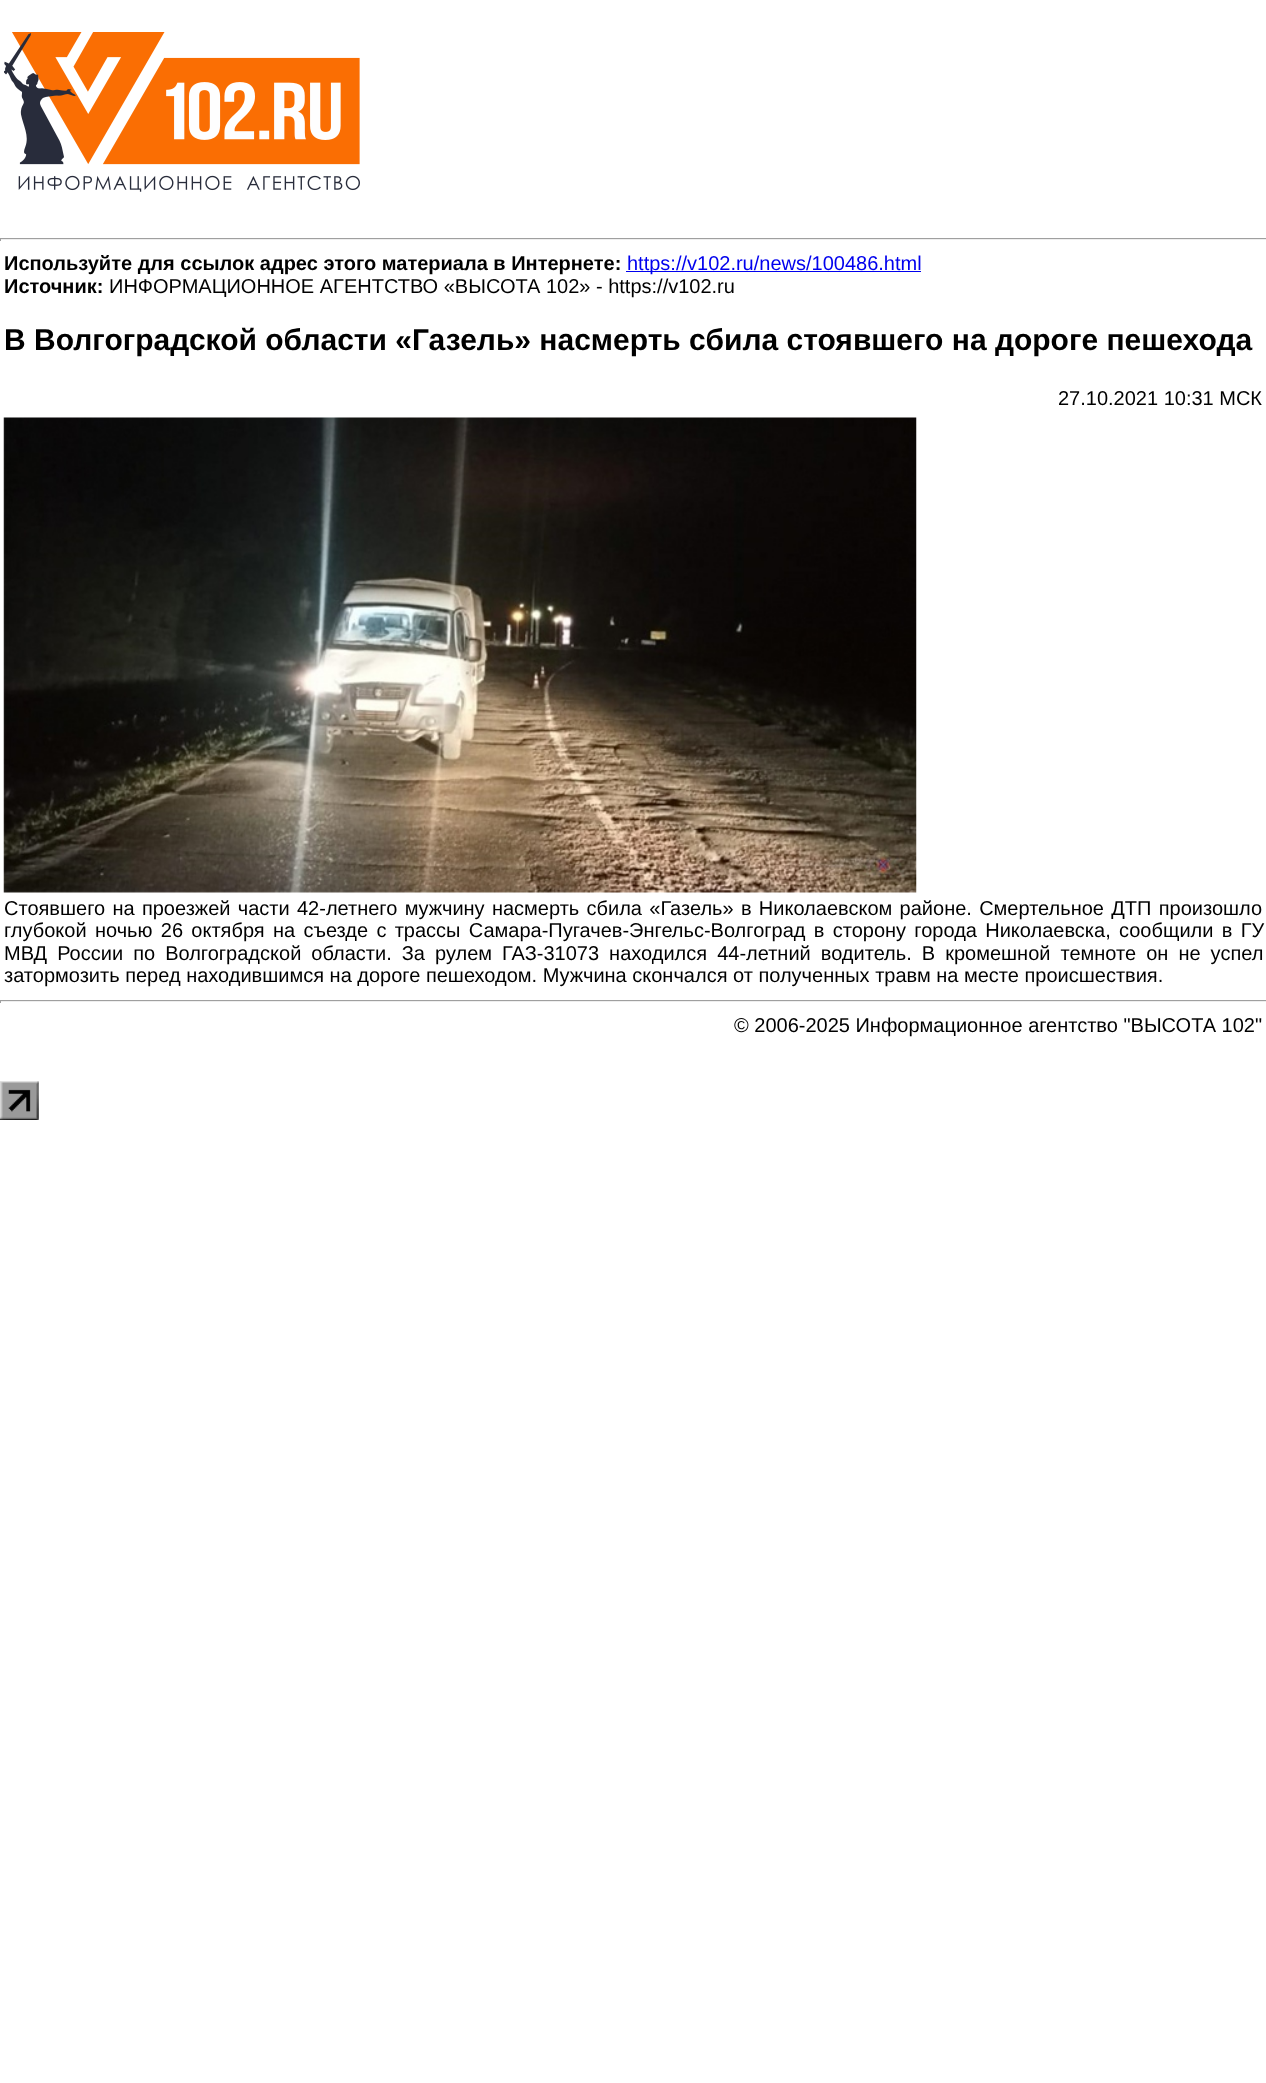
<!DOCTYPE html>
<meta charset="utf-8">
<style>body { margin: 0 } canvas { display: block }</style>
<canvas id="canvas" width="1266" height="2083"></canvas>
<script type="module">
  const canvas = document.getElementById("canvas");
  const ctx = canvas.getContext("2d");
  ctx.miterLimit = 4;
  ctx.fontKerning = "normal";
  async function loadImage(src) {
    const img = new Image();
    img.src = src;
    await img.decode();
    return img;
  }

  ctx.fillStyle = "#ffffff";
  ctx.fillRect(0, 0, 1266, 2083);
  ctx.drawImage(await loadImage("img1.png"), 4, 32, 356, 160);
  ctx.fillStyle = "#9f9f9f";
  ctx.fillRect(0, 238, 1266, 1);
  ctx.fillStyle = "#eeeeee";
  ctx.fillRect(0, 239, 1266, 1);
  ctx.fillStyle = "#9f9f9f";
  ctx.fillRect(0, 238, 1, 3);
  ctx.font = "bold 20px Liberation Sans";
  ctx.fillStyle = "#000000";
  ctx.fillText("Используйте для ссылок адрес этого материала в Интернете:", 4, 270);
  ctx.fillStyle = "#0000ee";
  ctx.fillRect(626, 271, 295, 1);
  ctx.font = "20px Liberation Sans";
  ctx.fillText("https://v102.ru/news/100486.html", 627, 270);
  ctx.font = "bold 20px Liberation Sans";
  ctx.fillStyle = "#000000";
  ctx.fillText("Источник:", 4, 293);
  ctx.font = "20px Liberation Sans";
  ctx.fillText("ИНФОРМАЦИОННОЕ АГЕНТСТВО «ВЫСОТА 102» - https://v102.ru", 109, 293);
  ctx.font = "bold 30px Liberation Sans";
  ctx.fillText("В Волгоградской области «Газель» насмерть сбила стоявшего на дороге пешехода", 4, 350);
  ctx.font = "20px Liberation Sans";
  ctx.fillText("27.10.2021 10:31 МСК", 1058, 405);
  ctx.drawImage(await loadImage("img2.png"), 3, 417, 914, 476);
  ctx.wordSpacing = "1.75px";
  ctx.fillText("Стоявшего на проезжей части 42-летнего мужчину насмерть сбила «Газель» в Николаевском районе. Смертельное ДТП произошло", 4, 915);
  ctx.wordSpacing = "2.75px";
  ctx.fillText("глубокой ночью 26 октября на съезде с трассы Самара-Пугачев-Энгельс-Волгоград в сторону города Николаевска, сообщили в ГУ", 4, 937);
  ctx.wordSpacing = "4.5px";
  ctx.fillText("МВД России по Волгоградской области. За рулем ГАЗ-31073 находился 44-летний водитель. В кромешной темноте он не успел", 4, 960);
  ctx.wordSpacing = "0px";
  ctx.fillText("затормозить перед находившимся на дороге пешеходом. Мужчина скончался от полученных травм на месте происшествия.", 4, 982);
  ctx.fillStyle = "#9f9f9f";
  ctx.fillRect(0, 1000, 1266, 1);
  ctx.fillStyle = "#eeeeee";
  ctx.fillRect(0, 1001, 1266, 1);
  ctx.fillStyle = "#9f9f9f";
  ctx.fillRect(0, 1000, 1, 3);
  ctx.fillStyle = "#000000";
  ctx.fillText("© 2006-2025 Информационное агентство \"ВЫСОТА 102\"", 734, 1032);
  ctx.drawImage(await loadImage("img3.png"), 0, 1081, 39, 39);
</script>
